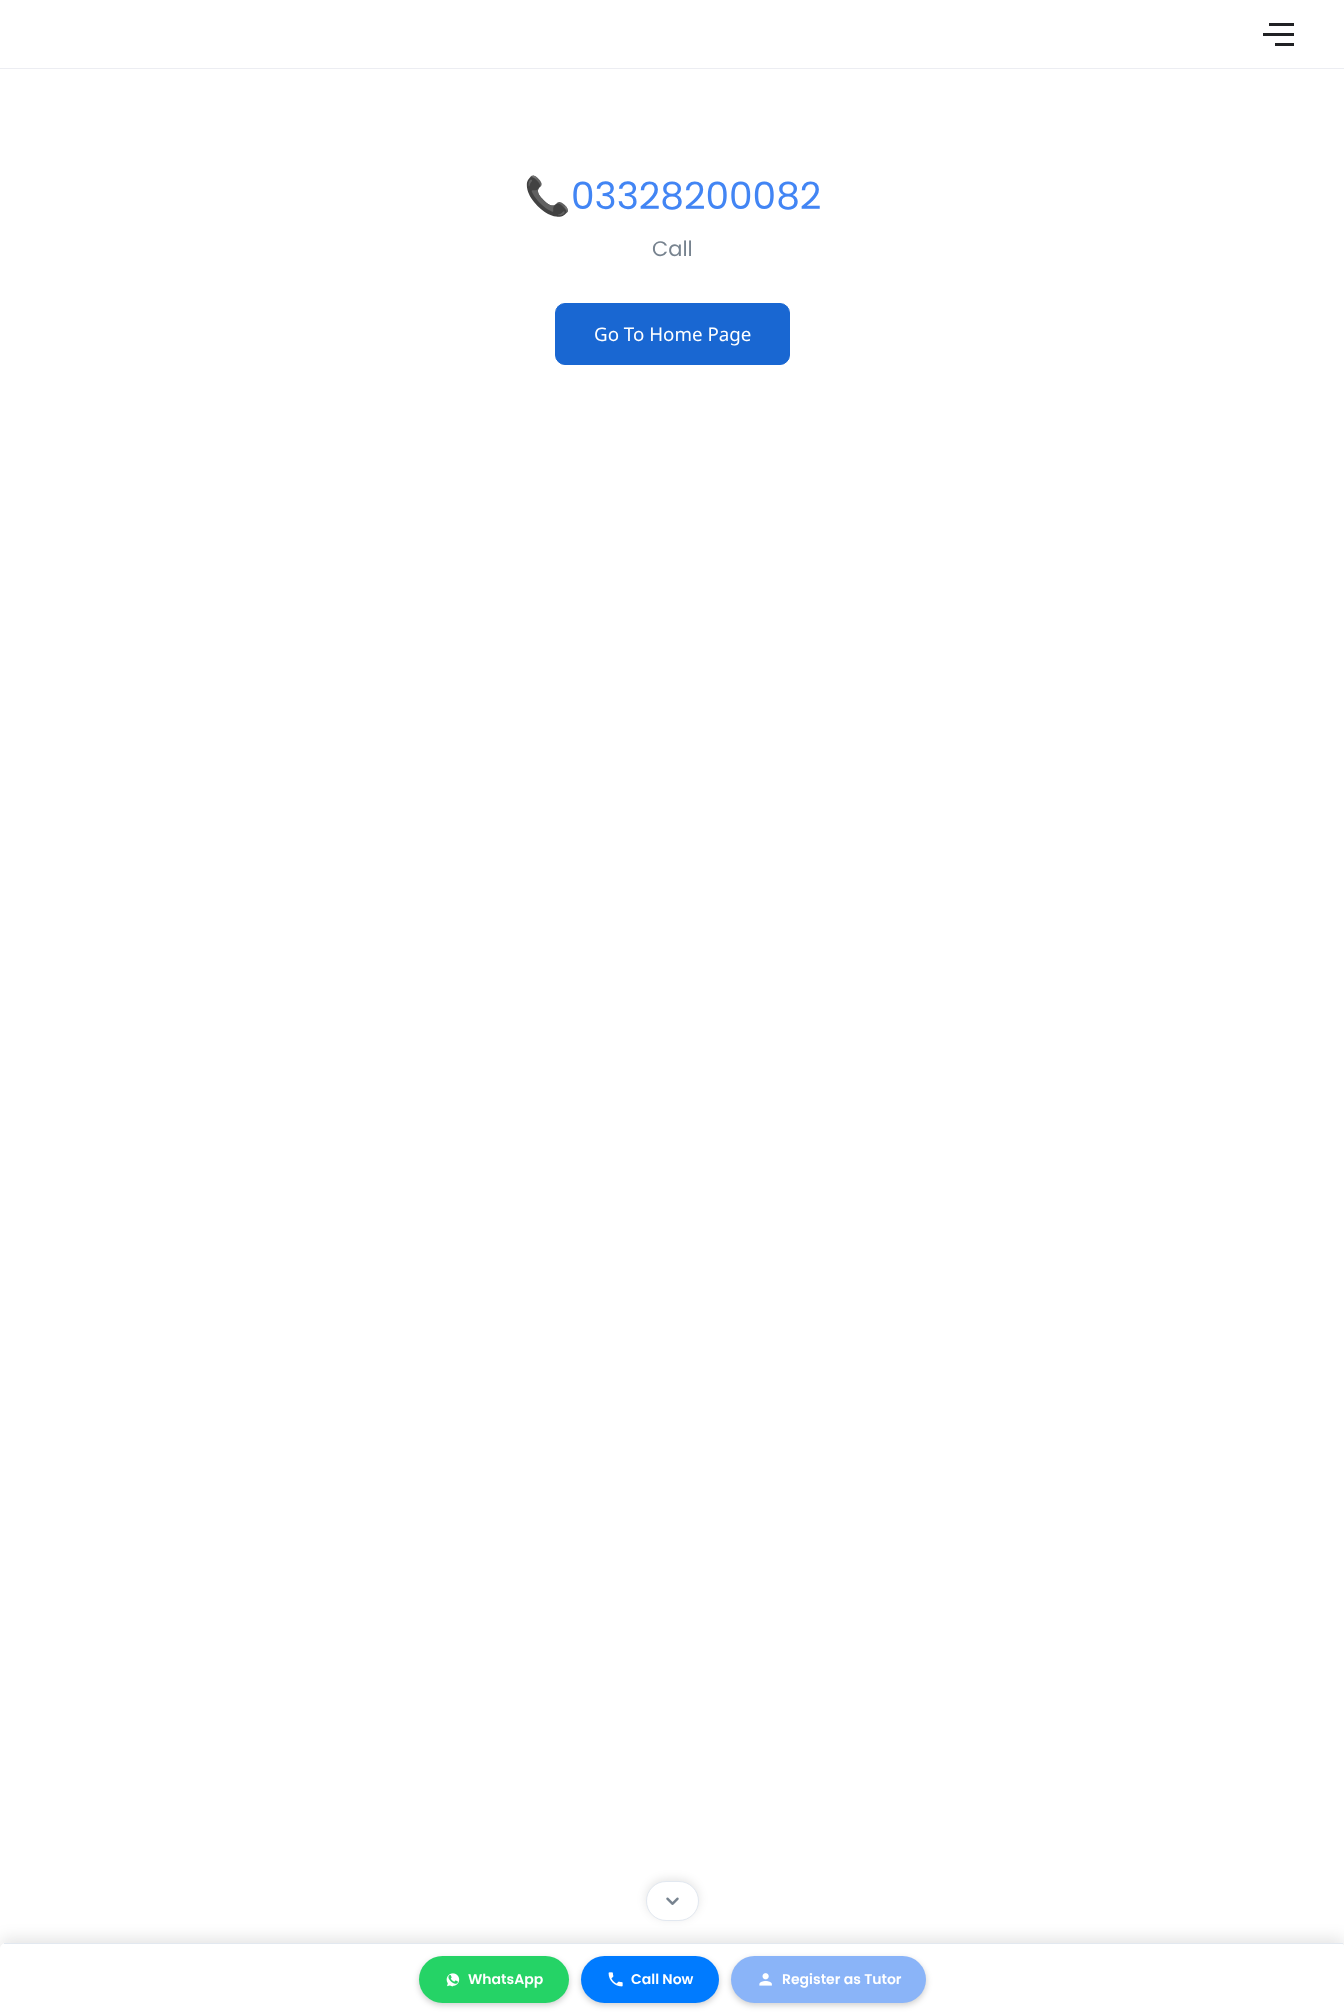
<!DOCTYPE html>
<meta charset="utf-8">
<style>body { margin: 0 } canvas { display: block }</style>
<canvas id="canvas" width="1344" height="2015"></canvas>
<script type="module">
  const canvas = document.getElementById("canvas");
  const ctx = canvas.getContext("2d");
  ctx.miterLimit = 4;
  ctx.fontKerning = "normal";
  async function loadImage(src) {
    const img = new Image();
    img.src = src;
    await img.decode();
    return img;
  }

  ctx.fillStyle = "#ffffff";
  ctx.fillRect(0, 0, 1344, 2015);
  ctx.fillStyle = "#ecedf2";
  ctx.fillRect(0, 68, 1344, 1);
  ctx.fillStyle = "#202124";
  ctx.fillRect(1269, 23, 25, 3);
  ctx.fillRect(1263, 33, 31, 3);
  ctx.fillRect(1275, 43, 19, 3);
  ctx.font = "37.5px Noto Color Emoji";
  ctx.fillStyle = "#4285f4";
  ctx.fillText("📞", 524, 209);
  ctx.font = "37.5px Poppins";
  ctx.fillText("03328200082", 571, 209);
  ctx.font = "21px Poppins";
  ctx.fillStyle = "#77838f";
  ctx.fillText("Call", 652, 256);
  ctx.fillStyle = "#1967d2";
  ctx.beginPath();
  ctx.roundRect(555.5, 303.5, 234, 61, 9.5);
  ctx.fill();
  ctx.strokeStyle = "#1967d2";
  ctx.stroke();
  ctx.font = "18.75px Noto Sans";
  ctx.fillStyle = "#ffffff";
  ctx.fillText("Go To Home Page", 594, 341);
  ctx.fillStyle = "rgba(0, 0, 0, 0.1)";
  ctx.filter = "blur(5px)";
  ctx.beginPath();
  ctx.roundRect(646, 1879, 53, 40, 20);
  ctx.fill();
  ctx.filter = "none";
  ctx.save();
  ctx.beginPath();
  ctx.moveTo(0, 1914);
  ctx.lineTo(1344, 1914);
  ctx.lineTo(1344, 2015);
  ctx.lineTo(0, 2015);
  ctx.closePath();
  ctx.moveTo(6, 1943);
  ctx.lineTo(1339, 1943);
  ctx.bezierCurveTo(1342.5, 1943, 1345, 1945.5, 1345, 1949);
  ctx.lineTo(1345, 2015);
  ctx.lineTo(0, 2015);
  ctx.lineTo(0, 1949);
  ctx.bezierCurveTo(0, 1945.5, 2.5, 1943, 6, 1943);
  ctx.closePath();
  ctx.clip("evenodd");
  ctx.filter = "blur(7.5px)";
  ctx.beginPath();
  ctx.roundRect(0, 1938, 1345, 72, 6);
  ctx.fill();
  ctx.filter = "none";
  ctx.restore();
  ctx.fillStyle = "#ffffff";
  ctx.beginPath();
  ctx.roundRect(646.5, 1881.5, 52, 39, 19.5);
  ctx.fill();
  ctx.strokeStyle = "#e2e8f0";
  ctx.stroke();
  ctx.drawImage(await loadImage("img1.png"), 666, 1897, 13, 8);
  ctx.fillStyle = "#e2e8f0";
  ctx.fillRect(4, 1943, 1339, 1);
  ctx.fillStyle = "rgba(0, 0, 0, 0.2)";
  ctx.filter = "blur(3px)";
  ctx.beginPath();
  ctx.roundRect(419, 1959, 150, 46, 23);
  ctx.fill();
  ctx.filter = "none";
  ctx.fillStyle = "#25d366";
  ctx.beginPath();
  ctx.roundRect(419, 1956, 150, 47, 23.5);
  ctx.fill();
  ctx.drawImage(await loadImage("img2.png"), 446, 1973, 14, 14);
  ctx.font = "600 14px Poppins";
  ctx.fillStyle = "#ffffff";
  ctx.fillText("WhatsApp", 468, 1984);
  ctx.fillStyle = "rgba(0, 0, 0, 0.2)";
  ctx.filter = "blur(3px)";
  ctx.beginPath();
  ctx.roundRect(581, 1959, 138, 46, 23);
  ctx.fill();
  ctx.filter = "none";
  ctx.fillStyle = "#007bff";
  ctx.beginPath();
  ctx.roundRect(581, 1956, 138, 47, 23.5);
  ctx.fill();
  ctx.drawImage(await loadImage("img3.png"), 608, 1972, 15, 15);
  ctx.fillStyle = "#ffffff";
  ctx.fillText("Call Now", 631, 1984);
  ctx.fillStyle = "rgba(0, 0, 0, 0.2)";
  ctx.filter = "blur(3px)";
  ctx.beginPath();
  ctx.roundRect(731, 1959, 195, 46, 23);
  ctx.fill();
  ctx.filter = "none";
  ctx.fillStyle = "#8ab4f8";
  ctx.beginPath();
  ctx.roundRect(731, 1956, 195, 47, 23.5);
  ctx.fill();
  ctx.drawImage(await loadImage("img4.png"), 759, 1973, 13, 13);
  ctx.fillStyle = "#ffffff";
  ctx.fillText("Register as Tutor", 782, 1984);
</script>
